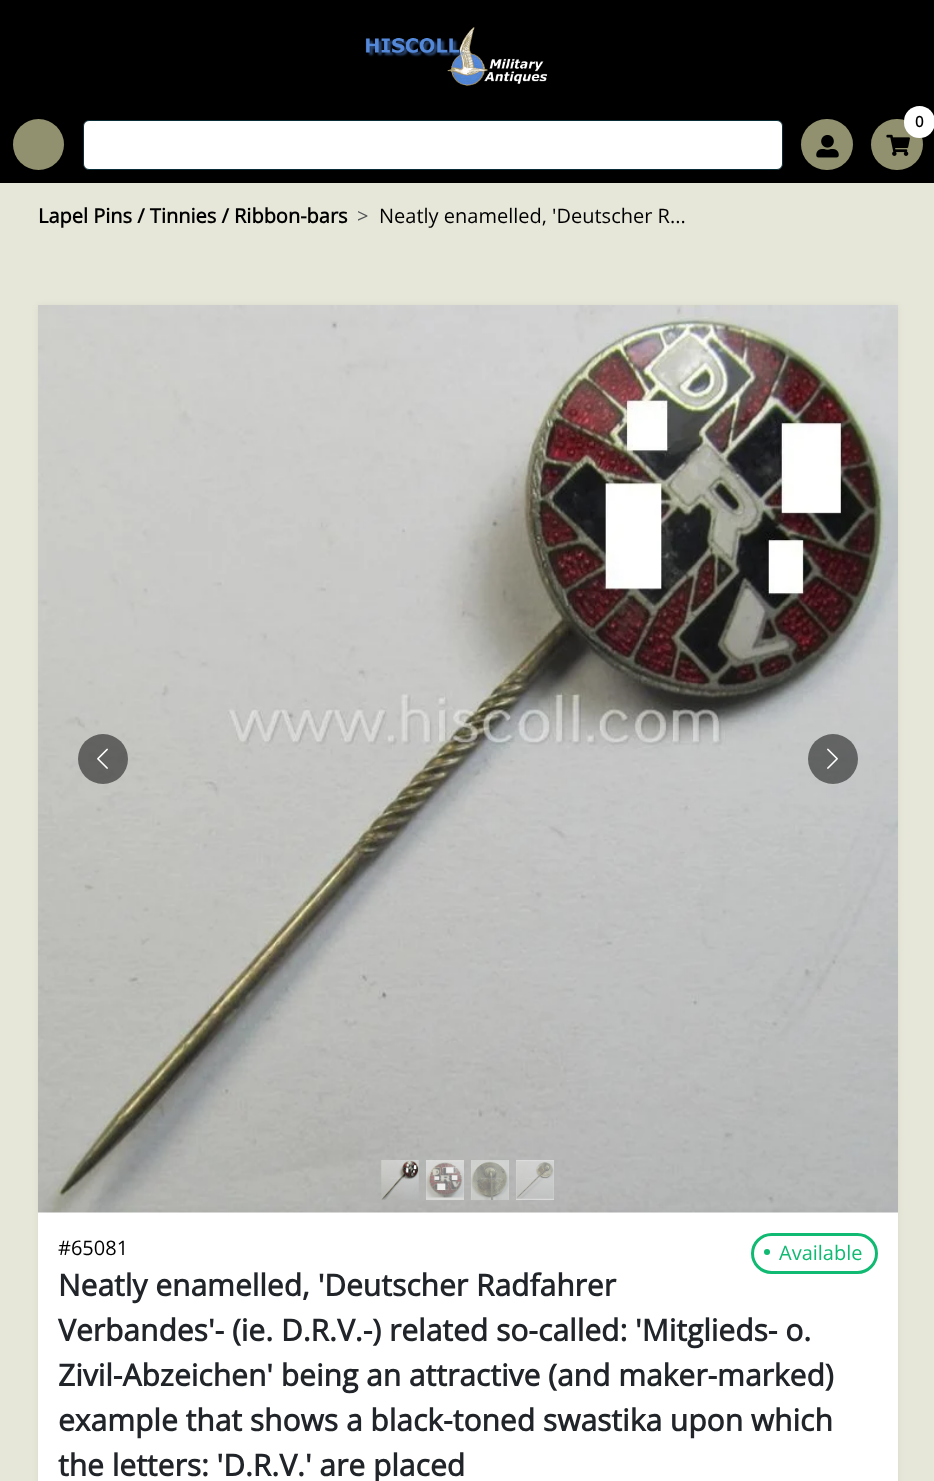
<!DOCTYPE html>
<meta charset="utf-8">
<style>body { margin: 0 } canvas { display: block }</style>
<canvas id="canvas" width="934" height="1481"></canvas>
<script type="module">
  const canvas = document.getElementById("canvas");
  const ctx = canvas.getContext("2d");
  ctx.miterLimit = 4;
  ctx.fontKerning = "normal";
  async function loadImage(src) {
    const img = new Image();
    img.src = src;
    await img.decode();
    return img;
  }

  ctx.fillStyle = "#e6e6d9";
  ctx.fillRect(0, 0, 934, 1481);
  ctx.fillStyle = "#000000";
  ctx.fillRect(0, 0, 934, 183);
  ctx.drawImage(await loadImage("img1.png"), 365, 27, 183, 59);
  ctx.fillStyle = "#91916f";
  ctx.beginPath();
  ctx.arc(38.5, 144.5, 25.5, 0, Math.PI * 2);
  ctx.fill();
  ctx.fillStyle = "#ffffff";
  ctx.beginPath();
  ctx.roundRect(83.5, 120.5, 699, 49, 5.5);
  ctx.fill();
  ctx.strokeStyle = "#092e37";
  ctx.stroke();
  ctx.fillStyle = "#91916f";
  ctx.beginPath();
  ctx.roundRect(801, 119, 52, 51, 25.5);
  ctx.fill();
  ctx.drawImage(await loadImage("img2.png"), 816, 135, 23, 23);
  ctx.beginPath();
  ctx.roundRect(871, 119, 52, 51, 25.5);
  ctx.fill();
  ctx.drawImage(await loadImage("img3.png"), 886, 134, 24, 22);
  ctx.fillStyle = "#ffffff";
  ctx.beginPath();
  ctx.roundRect(904, 106, 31, 32, 15.5);
  ctx.fill();
  ctx.font = "bold 15px Open Sans";
  ctx.fillStyle = "#000000";
  ctx.fillText("0", 915, 127);
  ctx.font = "bold 20px Open Sans";
  ctx.fillText("Lapel Pins / Tinnies / Ribbon-bars", 38, 223);
  ctx.font = "20px Open Sans";
  ctx.fillStyle = "#525555";
  ctx.fillText(">", 357, 223);
  ctx.fillStyle = "#000000";
  ctx.fillText("Neatly enamelled, 'Deutscher R...", 379, 223);
  ctx.fillStyle = "rgba(0, 0, 0, 0.05)";
  ctx.filter = "blur(3px)";
  ctx.beginPath();
  ctx.rect(38, 305, 860, 908);
  ctx.fill();
  ctx.filter = "none";
  ctx.fillStyle = "#ffffff";
  ctx.fillRect(38, 1212, 860, 1);
  ctx.drawImage(await loadImage("img4.png"), 38, 305, 860, 908);
  ctx.fillStyle = "rgba(0, 0, 0, 0.5)";
  ctx.beginPath();
  ctx.arc(103, 759, 25, 0, Math.PI * 2);
  ctx.fill();
  ctx.drawImage(await loadImage("img5.png"), 97, 748, 11, 21);
  ctx.beginPath();
  ctx.arc(833, 759, 25, 0, Math.PI * 2);
  ctx.fill();
  ctx.drawImage(await loadImage("img6.png"), 827, 748, 11, 21);
  ctx.drawImage(await loadImage("img7.png"), 381, 1160, 38, 40);
  ctx.fillStyle = "rgba(255, 255, 255, 0.5)";
  ctx.beginPath();
  ctx.moveTo(432, 1160);
  ctx.lineTo(464, 1160);
  ctx.lineTo(464, 1200);
  ctx.lineTo(426, 1200);
  ctx.lineTo(426, 1160);
  ctx.closePath();
  ctx.fill();
  ctx.drawImage(await loadImage("img8.png"), 426, 1162, 38, 36);
  ctx.beginPath();
  ctx.moveTo(478, 1160);
  ctx.lineTo(509, 1160);
  ctx.lineTo(509, 1200);
  ctx.lineTo(471, 1200);
  ctx.lineTo(471, 1160);
  ctx.closePath();
  ctx.fill();
  ctx.drawImage(await loadImage("img9.png"), 471, 1160, 38, 40);
  ctx.beginPath();
  ctx.moveTo(522, 1160);
  ctx.lineTo(554, 1160);
  ctx.lineTo(554, 1200);
  ctx.lineTo(516, 1200);
  ctx.lineTo(516, 1160);
  ctx.closePath();
  ctx.fill();
  ctx.drawImage(await loadImage("img10.png"), 516, 1161, 38, 38);
  ctx.fillStyle = "rgba(0, 0, 0, 0.05)";
  ctx.filter = "blur(3px)";
  ctx.beginPath();
  ctx.rect(38, 1213, 860, 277);
  ctx.fill();
  ctx.filter = "none";
  ctx.fillStyle = "#ffffff";
  ctx.fillRect(38, 1213, 860, 268);
  ctx.fillStyle = "#000000";
  ctx.fillText("#65081", 58, 1255);
  ctx.beginPath();
  ctx.roundRect(752.5, 1234.5, 124, 38, 19);
  ctx.strokeStyle = "#10ba72";
  ctx.lineWidth = 3;
  ctx.stroke();
  ctx.fillStyle = "#10ba72";
  ctx.beginPath();
  ctx.arc(767, 1252, 3, 0, Math.PI * 2);
  ctx.fill();
  ctx.fillText("Available", 779, 1260);
  ctx.font = "bold 30px Open Sans";
  ctx.fillStyle = "#212529";
  ctx.fillText("Neatly enamelled, 'Deutscher Radfahrer", 58, 1296);
  ctx.fillText("Verbandes'- (ie. D.R.V.-) related so-called: 'Mitglieds- o.", 58, 1341);
  ctx.fillText("Zivil-Abzeichen' being an attractive (and maker-marked)", 58, 1386);
  ctx.fillText("example that shows a black-toned swastika upon which", 58, 1431);
  ctx.fillText("the letters: 'D.R.V.' are placed", 58, 1476);
</script>
